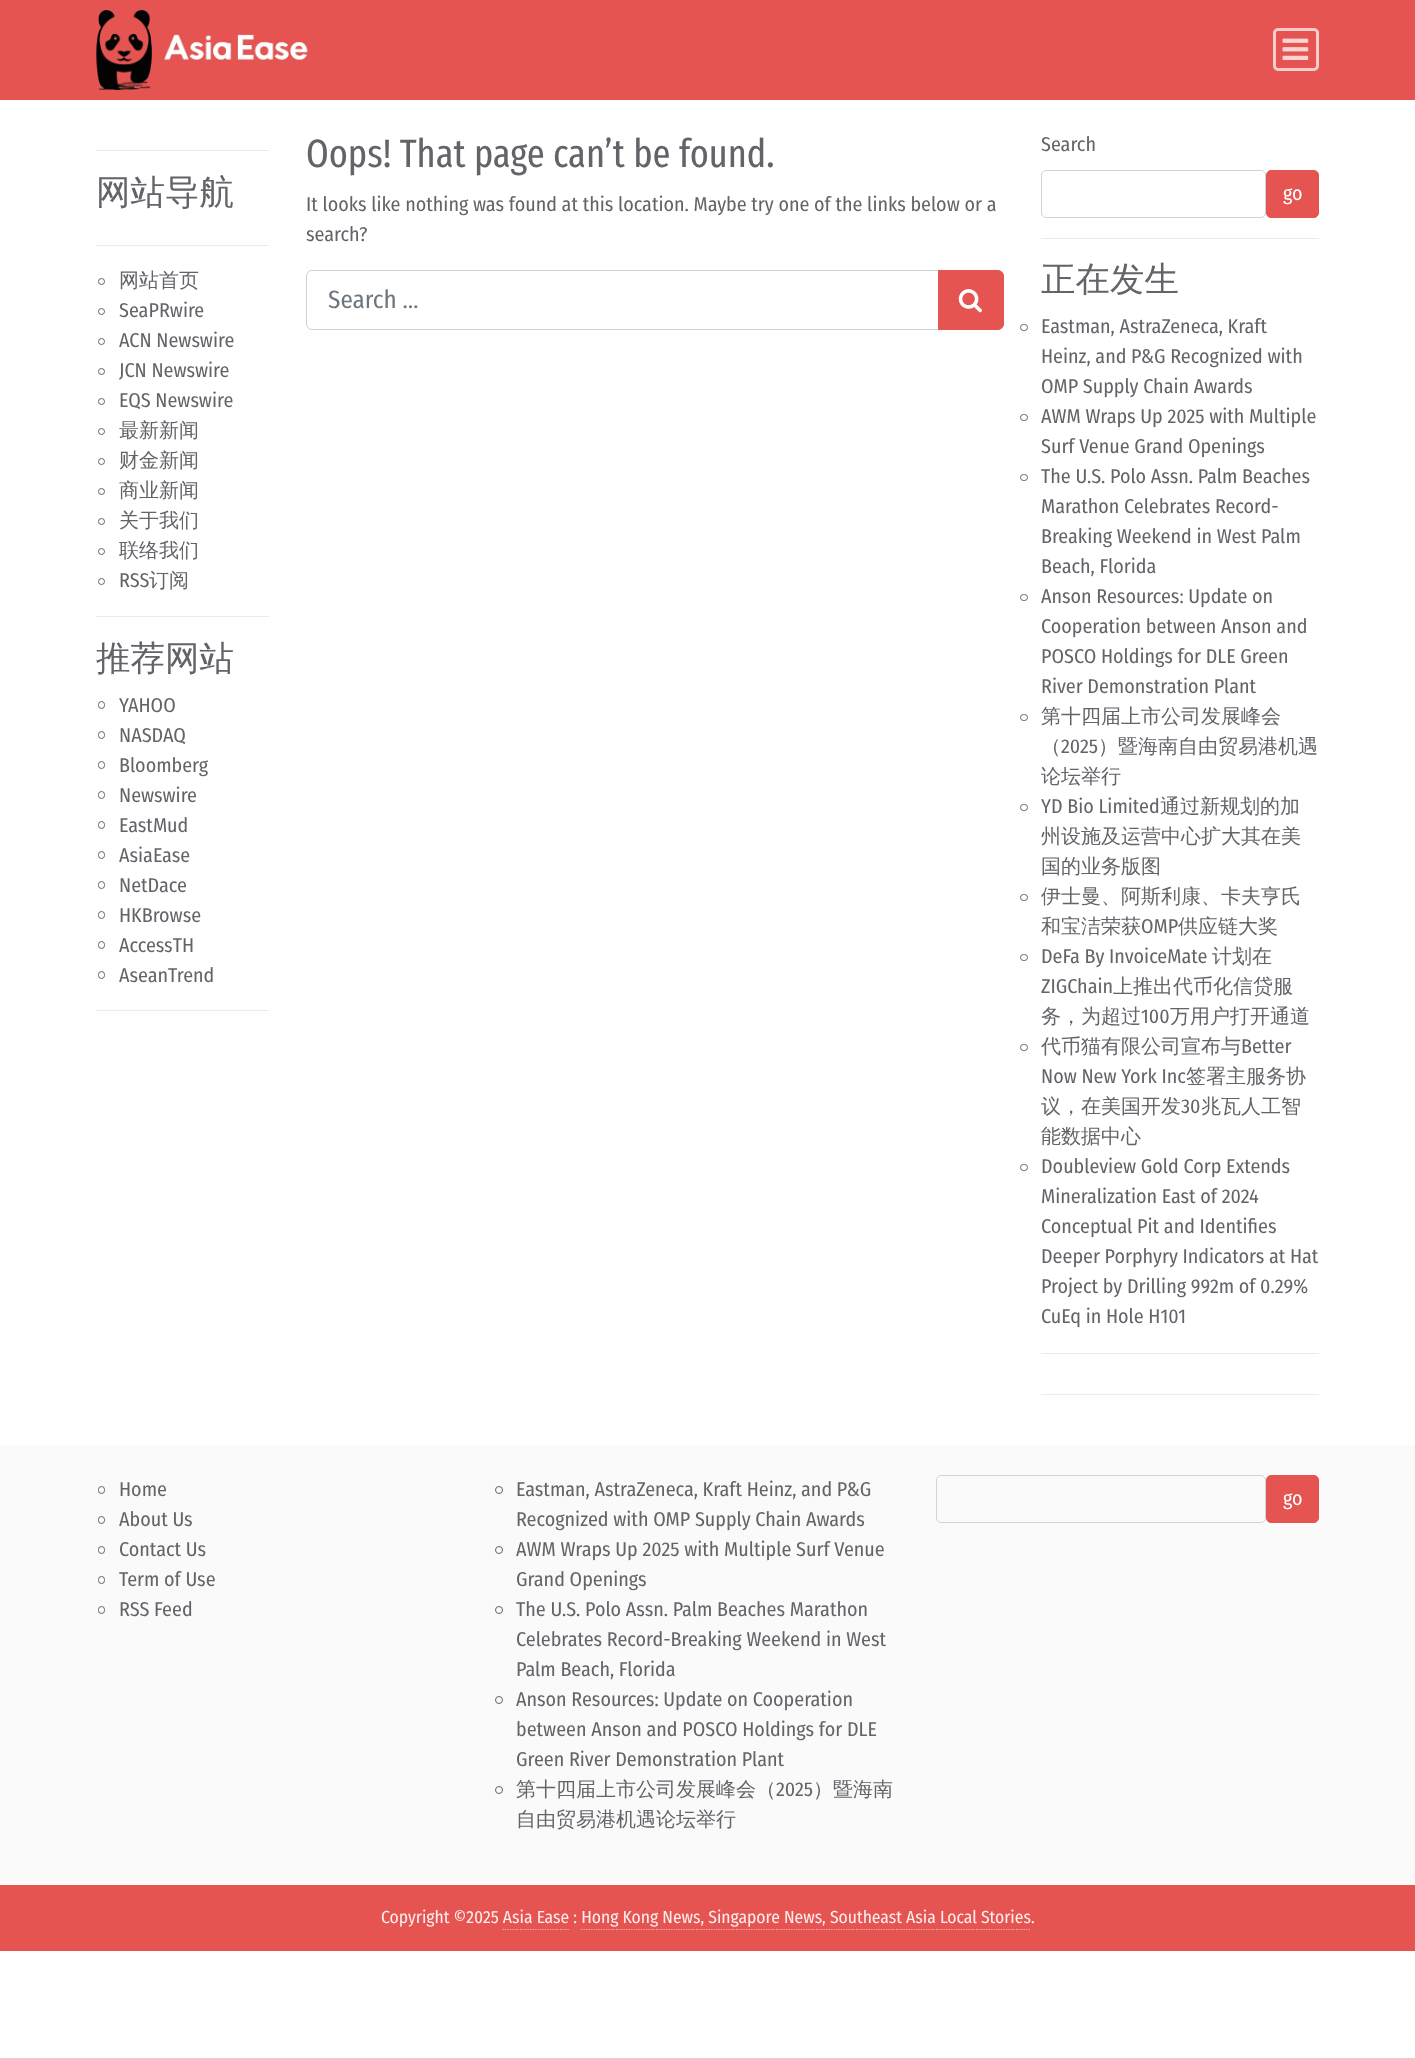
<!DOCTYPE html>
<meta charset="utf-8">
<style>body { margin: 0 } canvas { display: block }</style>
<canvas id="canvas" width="1415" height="2058"></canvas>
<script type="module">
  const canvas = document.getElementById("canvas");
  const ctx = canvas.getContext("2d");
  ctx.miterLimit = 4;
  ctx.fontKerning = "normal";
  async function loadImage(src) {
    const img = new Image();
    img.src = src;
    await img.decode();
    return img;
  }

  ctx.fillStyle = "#ffffff";
  ctx.fillRect(0, 0, 1415, 2058);
  ctx.fillStyle = "#e55451";
  ctx.fillRect(0, 0, 1415, 100);
  ctx.drawImage(await loadImage("img1.png"), 96, 10, 212, 80);
  ctx.beginPath();
  ctx.roundRect(1274.5, 29.5, 43, 40, 3.5);
  ctx.strokeStyle = "#f7cccb";
  ctx.lineWidth = 3;
  ctx.stroke();
  ctx.drawImage(await loadImage("img2.png"), 1282, 38, 27, 22);
  ctx.fillStyle = "#e9ecef";
  ctx.fillRect(96, 150, 173, 1);
  ctx.fillRect(96, 245, 173, 1);
  ctx.font = "500 34.5px WenQuanYi Zen Hei";
  ctx.fillStyle = "#636369";
  ctx.fillText("网站导航", 96, 204);
  ctx.fillStyle = "#e9ecef";
  ctx.fillRect(96, 616, 173, 1);
  ctx.beginPath();
  ctx.arc(101.5, 281.5, 3, 0, Math.PI * 2);
  ctx.strokeStyle = "#636369";
  ctx.lineWidth = 1;
  ctx.stroke();
  ctx.font = "500 20px WenQuanYi Zen Hei";
  ctx.fillStyle = "#636369";
  ctx.fillText("网站首页", 119, 287);
  ctx.beginPath();
  ctx.arc(101.5, 311.5, 3, 0, Math.PI * 2);
  ctx.stroke();
  ctx.font = "20px Fira Sans Condensed";
  ctx.fillText("SeaPRwire", 119, 317);
  ctx.beginPath();
  ctx.arc(101.5, 341.5, 3, 0, Math.PI * 2);
  ctx.stroke();
  ctx.fillText("ACN Newswire", 119, 347);
  ctx.beginPath();
  ctx.arc(101.5, 371.5, 3, 0, Math.PI * 2);
  ctx.stroke();
  ctx.fillText("JCN Newswire", 119, 377);
  ctx.beginPath();
  ctx.arc(101.5, 401.5, 3, 0, Math.PI * 2);
  ctx.stroke();
  ctx.fillText("EQS Newswire", 119, 407);
  ctx.beginPath();
  ctx.arc(101.5, 431.5, 3, 0, Math.PI * 2);
  ctx.stroke();
  ctx.font = "500 20px WenQuanYi Zen Hei";
  ctx.fillText("最新新闻", 119, 437);
  ctx.beginPath();
  ctx.arc(101.5, 461.5, 3, 0, Math.PI * 2);
  ctx.stroke();
  ctx.fillText("财金新闻", 119, 467);
  ctx.beginPath();
  ctx.arc(101.5, 491.5, 3, 0, Math.PI * 2);
  ctx.stroke();
  ctx.fillText("商业新闻", 119, 497);
  ctx.beginPath();
  ctx.arc(101.5, 521.5, 3, 0, Math.PI * 2);
  ctx.stroke();
  ctx.fillText("关于我们", 119, 527);
  ctx.beginPath();
  ctx.arc(101.5, 551.5, 3, 0, Math.PI * 2);
  ctx.stroke();
  ctx.fillText("联络我们", 119, 557);
  ctx.beginPath();
  ctx.arc(101.5, 581.5, 3, 0, Math.PI * 2);
  ctx.stroke();
  ctx.font = "20px Fira Sans Condensed";
  ctx.fillText("RSS", 119, 587);
  ctx.font = "500 20px WenQuanYi Zen Hei";
  ctx.fillText("订阅", 149, 587);
  ctx.fillStyle = "#e9ecef";
  ctx.fillRect(96, 1010, 173, 1);
  ctx.font = "500 34.5px WenQuanYi Zen Hei";
  ctx.fillStyle = "#636369";
  ctx.fillText("推荐网站", 96, 670);
  ctx.beginPath();
  ctx.roundRect(98.5, 701.5, 6, 7, 3);
  ctx.stroke();
  ctx.font = "20px Fira Sans Condensed";
  ctx.fillText("YAHOO", 119, 712);
  ctx.beginPath();
  ctx.roundRect(98.5, 731.5, 6, 7, 3);
  ctx.stroke();
  ctx.fillText("NASDAQ", 119, 742);
  ctx.beginPath();
  ctx.roundRect(98.5, 761.5, 6, 7, 3);
  ctx.stroke();
  ctx.fillText("Bloomberg", 119, 772);
  ctx.beginPath();
  ctx.roundRect(98.5, 791.5, 6, 7, 3);
  ctx.stroke();
  ctx.fillText("Newswire", 119, 802);
  ctx.beginPath();
  ctx.roundRect(98.5, 821.5, 6, 7, 3);
  ctx.stroke();
  ctx.fillText("EastMud", 119, 832);
  ctx.beginPath();
  ctx.roundRect(98.5, 851.5, 6, 7, 3);
  ctx.stroke();
  ctx.fillText("AsiaEase", 119, 862);
  ctx.beginPath();
  ctx.roundRect(98.5, 881.5, 6, 7, 3);
  ctx.stroke();
  ctx.fillText("NetDace", 119, 892);
  ctx.beginPath();
  ctx.roundRect(98.5, 911.5, 6, 7, 3);
  ctx.stroke();
  ctx.fillText("HKBrowse", 119, 922);
  ctx.beginPath();
  ctx.roundRect(98.5, 941.5, 6, 7, 3);
  ctx.stroke();
  ctx.fillText("AccessTH", 119, 952);
  ctx.beginPath();
  ctx.roundRect(98.5, 971.5, 6, 7, 3);
  ctx.stroke();
  ctx.fillText("AseanTrend", 119, 982);
  ctx.font = "39.5px Fira Sans Extra Condensed";
  ctx.fillText("Oops! That page can’t be found.", 306, 167);
  ctx.font = "20px Fira Sans Condensed";
  ctx.fillText("It looks like nothing was found at this location. Maybe try one of the links below or a", 306, 211);
  ctx.fillText("search?", 306, 241);
  ctx.beginPath();
  ctx.roundRect(306.5, 270.5, 632, 59, [5.5, 0, 0, 5.5]);
  ctx.strokeStyle = "#ced4da";
  ctx.stroke();
  ctx.font = "25px Fira Sans Condensed";
  ctx.fillStyle = "#6c757d";
  ctx.fillText("Search …", 328, 308);
  ctx.fillStyle = "#e55451";
  ctx.beginPath();
  ctx.roundRect(938.5, 270.5, 65, 59, [0, 5.5, 5.5, 0]);
  ctx.fill();
  ctx.strokeStyle = "#e55451";
  ctx.stroke();
  ctx.drawImage(await loadImage("img3.png"), 958, 289, 24, 24);
  ctx.fillStyle = "#e9ecef";
  ctx.fillRect(1041, 238, 278, 1);
  ctx.font = "20px Fira Sans Condensed";
  ctx.fillStyle = "#636369";
  ctx.fillText("Search", 1041, 151);
  ctx.beginPath();
  ctx.roundRect(1041.5, 170.5, 224, 47, 4.5);
  ctx.strokeStyle = "#ced4da";
  ctx.stroke();
  ctx.fillStyle = "#e55451";
  ctx.beginPath();
  ctx.roundRect(1266.5, 170.5, 52, 47, 4.5);
  ctx.fill();
  ctx.strokeStyle = "#e55451";
  ctx.stroke();
  ctx.fillStyle = "#ffffff";
  ctx.fillText("go", 1283, 200);
  ctx.fillStyle = "#e9ecef";
  ctx.fillRect(1041, 1353, 278, 1);
  ctx.font = "500 34.5px WenQuanYi Zen Hei";
  ctx.fillStyle = "#636369";
  ctx.fillText("正在发生", 1041, 291);
  ctx.beginPath();
  ctx.roundRect(1020.5, 324.5, 7, 6, 3);
  ctx.strokeStyle = "#636369";
  ctx.stroke();
  ctx.font = "20px Fira Sans Condensed";
  ctx.fillText("Eastman, AstraZeneca, Kraft", 1041, 333);
  ctx.fillText("Heinz, and P&G Recognized with", 1041, 363);
  ctx.fillText("OMP Supply Chain Awards", 1041, 393);
  ctx.beginPath();
  ctx.roundRect(1020.5, 414.5, 7, 6, 3);
  ctx.stroke();
  ctx.fillText("AWM Wraps Up 2025 with Multiple", 1041, 423);
  ctx.fillText("Surf Venue Grand Openings", 1041, 453);
  ctx.beginPath();
  ctx.roundRect(1020.5, 474.5, 7, 6, 3);
  ctx.stroke();
  ctx.fillText("The U.S. Polo Assn. Palm Beaches", 1041, 483);
  ctx.fillText("Marathon Celebrates Record-", 1041, 513);
  ctx.fillText("Breaking Weekend in West Palm", 1041, 543);
  ctx.fillText("Beach, Florida", 1041, 573);
  ctx.beginPath();
  ctx.roundRect(1020.5, 594.5, 7, 6, 3);
  ctx.stroke();
  ctx.fillText("Anson Resources: Update on", 1041, 603);
  ctx.fillText("Cooperation between Anson and", 1041, 633);
  ctx.fillText("POSCO Holdings for DLE Green", 1041, 663);
  ctx.fillText("River Demonstration Plant", 1041, 693);
  ctx.beginPath();
  ctx.roundRect(1020.5, 714.5, 7, 6, 3);
  ctx.stroke();
  ctx.font = "500 20px WenQuanYi Zen Hei";
  ctx.fillText("第十四届上市公司发展峰会", 1041, 723);
  ctx.fillText("（", 1041, 753);
  ctx.font = "20px Fira Sans Condensed";
  ctx.fillText("2025", 1061, 753);
  ctx.font = "500 20px WenQuanYi Zen Hei";
  ctx.fillText("）暨海南自由贸易港机遇", 1098, 753);
  ctx.fillText("论坛举行", 1041, 783);
  ctx.beginPath();
  ctx.roundRect(1020.5, 804.5, 7, 6, 3);
  ctx.stroke();
  ctx.font = "20px Fira Sans Condensed";
  ctx.fillText("YD Bio Limited", 1041, 813);
  ctx.font = "500 20px WenQuanYi Zen Hei";
  ctx.fillText("通过新规划的加", 1160, 813);
  ctx.fillText("州设施及运营中心扩大其在美", 1041, 843);
  ctx.fillText("国的业务版图", 1041, 873);
  ctx.beginPath();
  ctx.roundRect(1020.5, 894.5, 7, 6, 3);
  ctx.stroke();
  ctx.fillText("伊士曼、阿斯利康、卡夫亨氏", 1041, 903);
  ctx.fillText("和宝洁荣获", 1041, 933);
  ctx.font = "20px Fira Sans Condensed";
  ctx.fillText("OMP", 1141, 933);
  ctx.font = "500 20px WenQuanYi Zen Hei";
  ctx.fillText("供应链大奖", 1178, 933);
  ctx.beginPath();
  ctx.roundRect(1020.5, 954.5, 7, 6, 3);
  ctx.stroke();
  ctx.font = "20px Fira Sans Condensed";
  ctx.fillText("DeFa By InvoiceMate", 1041, 963);
  ctx.font = "500 20px WenQuanYi Zen Hei";
  ctx.fillText("计划在", 1212, 963);
  ctx.font = "20px Fira Sans Condensed";
  ctx.fillText("ZIGChain", 1041, 993);
  ctx.font = "500 20px WenQuanYi Zen Hei";
  ctx.fillText("上推出代币化信贷服", 1113, 993);
  ctx.fillText("务，为超过", 1041, 1023);
  ctx.font = "20px Fira Sans Condensed";
  ctx.fillText("100", 1141, 1023);
  ctx.font = "500 20px WenQuanYi Zen Hei";
  ctx.fillText("万用户打开通道", 1170, 1023);
  ctx.beginPath();
  ctx.roundRect(1020.5, 1044.5, 7, 6, 3);
  ctx.stroke();
  ctx.fillText("代币猫有限公司宣布与", 1041, 1053);
  ctx.font = "20px Fira Sans Condensed";
  ctx.fillText("Better", 1241, 1053);
  ctx.fillText("Now New York Inc", 1041, 1083);
  ctx.font = "500 20px WenQuanYi Zen Hei";
  ctx.fillText("签署主服务协", 1186, 1083);
  ctx.fillText("议，在美国开发", 1041, 1113);
  ctx.font = "20px Fira Sans Condensed";
  ctx.fillText("30", 1181, 1113);
  ctx.font = "500 20px WenQuanYi Zen Hei";
  ctx.fillText("兆瓦人工智", 1201, 1113);
  ctx.fillText("能数据中心", 1041, 1143);
  ctx.beginPath();
  ctx.roundRect(1020.5, 1164.5, 7, 6, 3);
  ctx.stroke();
  ctx.font = "20px Fira Sans Condensed";
  ctx.fillText("Doubleview Gold Corp Extends", 1041, 1173);
  ctx.fillText("Mineralization East of 2024", 1041, 1203);
  ctx.fillText("Conceptual Pit and Identifies", 1041, 1233);
  ctx.fillText("Deeper Porphyry Indicators at Hat", 1041, 1263);
  ctx.fillText("Project by Drilling 992m of 0.29%", 1041, 1293);
  ctx.fillText("CuEq in Hole H101", 1041, 1323);
  ctx.fillStyle = "#e9ecef";
  ctx.fillRect(1041, 1394, 278, 1);
  ctx.fillStyle = "#fafafa";
  ctx.fillRect(0, 1445, 1415, 440);
  ctx.beginPath();
  ctx.roundRect(98.5, 1486.5, 6, 7, 3);
  ctx.stroke();
  ctx.fillStyle = "#636369";
  ctx.fillText("Home", 119, 1496);
  ctx.beginPath();
  ctx.roundRect(98.5, 1516.5, 6, 7, 3);
  ctx.stroke();
  ctx.fillText("About Us", 119, 1526);
  ctx.beginPath();
  ctx.roundRect(98.5, 1546.5, 6, 7, 3);
  ctx.stroke();
  ctx.fillText("Contact Us", 119, 1556);
  ctx.beginPath();
  ctx.roundRect(98.5, 1576.5, 6, 7, 3);
  ctx.stroke();
  ctx.fillText("Term of Use", 119, 1586);
  ctx.beginPath();
  ctx.roundRect(98.5, 1606.5, 6, 7, 3);
  ctx.stroke();
  ctx.fillText("RSS Feed", 119, 1616);
  ctx.beginPath();
  ctx.arc(499, 1490, 3.5, 0, Math.PI * 2);
  ctx.stroke();
  ctx.fillText("Eastman, AstraZeneca, Kraft Heinz, and P&G", 516, 1496);
  ctx.fillText("Recognized with OMP Supply Chain Awards", 516, 1526);
  ctx.beginPath();
  ctx.arc(499, 1550, 3.5, 0, Math.PI * 2);
  ctx.stroke();
  ctx.fillText("AWM Wraps Up 2025 with Multiple Surf Venue", 516, 1556);
  ctx.fillText("Grand Openings", 516, 1586);
  ctx.beginPath();
  ctx.arc(499, 1610, 3.5, 0, Math.PI * 2);
  ctx.stroke();
  ctx.fillText("The U.S. Polo Assn. Palm Beaches Marathon", 516, 1616);
  ctx.fillText("Celebrates Record-Breaking Weekend in West", 516, 1646);
  ctx.fillText("Palm Beach, Florida", 516, 1676);
  ctx.beginPath();
  ctx.arc(499, 1700, 3.5, 0, Math.PI * 2);
  ctx.stroke();
  ctx.fillText("Anson Resources: Update on Cooperation", 516, 1706);
  ctx.fillText("between Anson and POSCO Holdings for DLE", 516, 1736);
  ctx.fillText("Green River Demonstration Plant", 516, 1766);
  ctx.beginPath();
  ctx.arc(499, 1790, 3.5, 0, Math.PI * 2);
  ctx.stroke();
  ctx.font = "500 20px WenQuanYi Zen Hei";
  ctx.fillText("第十四届上市公司发展峰会（", 516, 1796);
  ctx.font = "20px Fira Sans Condensed";
  ctx.fillText("2025", 776, 1796);
  ctx.font = "500 20px WenQuanYi Zen Hei";
  ctx.fillText("）暨海南", 813, 1796);
  ctx.fillText("自由贸易港机遇论坛举行", 516, 1826);
  ctx.beginPath();
  ctx.roundRect(936.5, 1475.5, 329, 47, 4.5);
  ctx.strokeStyle = "#ced4da";
  ctx.stroke();
  ctx.fillStyle = "#e55451";
  ctx.beginPath();
  ctx.roundRect(1266.5, 1475.5, 52, 47, 4.5);
  ctx.fill();
  ctx.strokeStyle = "#e55451";
  ctx.stroke();
  ctx.font = "20px Fira Sans Condensed";
  ctx.fillStyle = "#ffffff";
  ctx.fillText("go", 1283, 1505);
  ctx.fillStyle = "#e55451";
  ctx.fillRect(0, 1885, 1415, 66);
  ctx.font = "17.5px Fira Sans Condensed";
  ctx.fillStyle = "#fceeee";
  ctx.fillText("Copyright ©2025 Asia Ease : Hong Kong News, Singapore News, Southeast Asia Local Stories.", 381, 1923);
  ctx.beginPath();
  ctx.moveTo(502.5, 1929.5);
  ctx.lineTo(569, 1929.5);
  ctx.strokeStyle = "#f3b2b1";
  ctx.lineWidth = 1.2;
  ctx.setLineDash([1.25, 1.25]);
  ctx.stroke();
  ctx.beginPath();
  ctx.moveTo(581, 1929.5);
  ctx.lineTo(1030, 1929.5);
  ctx.stroke();
</script>
